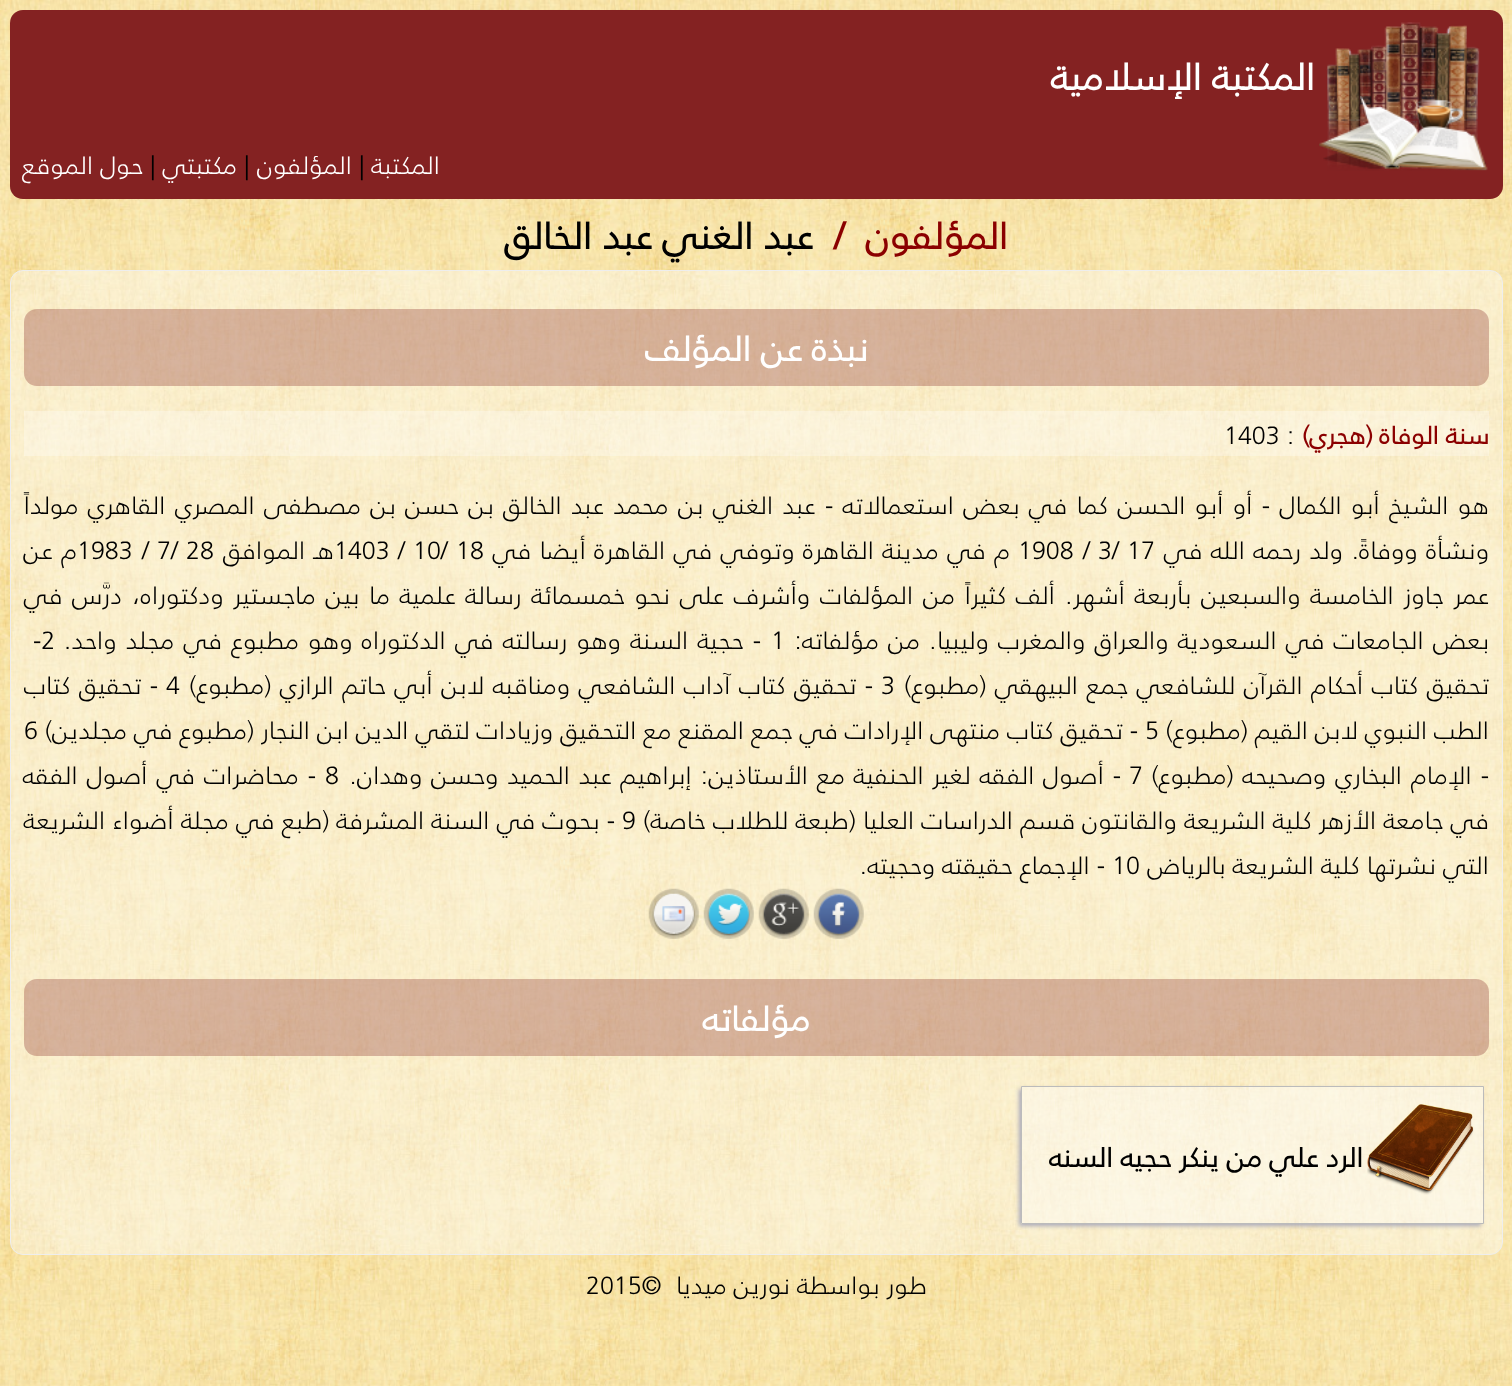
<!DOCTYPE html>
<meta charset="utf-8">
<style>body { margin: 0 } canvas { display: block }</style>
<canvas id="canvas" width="1512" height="1386"></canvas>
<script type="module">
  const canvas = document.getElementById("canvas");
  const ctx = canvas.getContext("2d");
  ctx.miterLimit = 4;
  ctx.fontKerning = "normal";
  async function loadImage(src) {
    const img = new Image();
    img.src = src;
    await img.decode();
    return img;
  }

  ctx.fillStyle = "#ffffff";
  ctx.fillRect(0, 0, 1512, 1386);
  ctx.drawImage(await loadImage("img1.png"), 0, 0, 1512, 1386);
  ctx.fillStyle = "#842222";
  ctx.beginPath();
  ctx.roundRect(10, 10, 1493, 189, 13);
  ctx.fill();
  ctx.drawImage(await loadImage("img2.png"), 1319, 22, 169, 149);
  ctx.direction = "rtl";
  ctx.font = "bold 37.5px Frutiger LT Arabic";
  ctx.fillStyle = "#ffffff";
  ctx.fillText("المكتبة الإسلامية", 1315, 90);
  ctx.font = "300 25px Frutiger LT Arabic";
  ctx.fillText("المكتبة", 440, 174);
  ctx.direction = "ltr";
  ctx.fillStyle = "#000000";
  ctx.fillText("|", 359, 174);
  ctx.direction = "rtl";
  ctx.fillStyle = "#ffffff";
  ctx.fillText("المؤلفون", 352, 174);
  ctx.direction = "ltr";
  ctx.fillStyle = "#000000";
  ctx.fillText("|", 244, 174);
  ctx.direction = "rtl";
  ctx.fillStyle = "#ffffff";
  ctx.fillText("مكتبتي", 237, 174);
  ctx.direction = "ltr";
  ctx.fillStyle = "#000000";
  ctx.fillText("|", 150, 174);
  ctx.direction = "rtl";
  ctx.fillStyle = "#ffffff";
  ctx.fillText("حول الموقع", 143, 174);
  ctx.font = "bold 37.5px Frutiger LT Arabic";
  ctx.fillStyle = "#8b0000";
  ctx.fillText("المؤلفون", 1008, 249);
  ctx.direction = "ltr";
  ctx.fillText("/", 834, 249);
  ctx.direction = "rtl";
  ctx.fillStyle = "#000000";
  ctx.fillText("عبد الغني عبد الخالق", 813, 249);
  ctx.fillStyle = "rgba(255, 255, 255, 0.4)";
  ctx.beginPath();
  ctx.roundRect(10.5, 270.5, 1492, 984, 12.5);
  ctx.fill();
  ctx.strokeStyle = "#eeeeee";
  ctx.stroke();
  ctx.fillStyle = "rgba(128, 32, 32, 0.3)";
  ctx.beginPath();
  ctx.roundRect(24, 309, 1465, 77, 13);
  ctx.fill();
  ctx.font = "bold 35px Frutiger LT Arabic";
  ctx.fillStyle = "#ffffff";
  ctx.fillText("نبذة عن المؤلف", 868, 361);
  ctx.fillStyle = "rgba(255, 255, 255, 0.3)";
  ctx.fillRect(24, 411, 1465, 45);
  ctx.font = "bold 25px Frutiger LT Arabic";
  ctx.fillStyle = "#8b0000";
  ctx.fillText("سنة الوفاة (هجري)", 1489, 444);
  ctx.direction = "ltr";
  ctx.font = "300 25px Frutiger LT Arabic";
  ctx.fillStyle = "#000000";
  ctx.fillText("1403 :", 1224, 444);
  ctx.wordSpacing = "2.4px";
  ctx.direction = "rtl";
  ctx.fillText("هو الشيخ أبو الكمال - أو أبو الحسن كما في بعض استعمالاته - عبد الغني بن محمد عبد الخالق بن حسن بن مصطفى المصري القاهري مولداً", 1489, 514);
  ctx.wordSpacing = "1.5px";
  ctx.fillText("ونشأة ووفاةً. ولد رحمه الله في", 1489, 559);
  ctx.wordSpacing = "0px";
  ctx.direction = "ltr";
  ctx.fillText("17", 1127, 559);
  ctx.fillText("3/", 1098, 559);
  ctx.fillText("/", 1083, 559);
  ctx.fillText("1908", 1018, 559);
  ctx.wordSpacing = "1.5px";
  ctx.direction = "rtl";
  ctx.fillText("م في مدينة القاهرة وتوفي في القاهرة أيضا في", 1010, 559);
  ctx.wordSpacing = "0px";
  ctx.direction = "ltr";
  ctx.fillText("18", 456, 559);
  ctx.fillText("10/", 413, 559);
  ctx.fillText("/", 398, 559);
  ctx.fillText("1403", 334, 559);
  ctx.wordSpacing = "1.5px";
  ctx.direction = "rtl";
  ctx.fillText("هـ الموافق", 334, 559);
  ctx.wordSpacing = "0px";
  ctx.direction = "ltr";
  ctx.fillText("28", 186, 559);
  ctx.fillText("7/", 157, 559);
  ctx.fillText("/", 142, 559);
  ctx.fillText("1983", 77, 559);
  ctx.wordSpacing = "1.5px";
  ctx.direction = "rtl";
  ctx.fillText("م عن", 77, 559);
  ctx.wordSpacing = "2.8px";
  ctx.fillText("عمر جاوز الخامسة والسبعين بأربعة أشهر. ألف كثيراً من المؤلفات وأشرف على نحو خمسمائة رسالة علمية ما بين ماجستير ودكتوراه، درَّس في", 1489, 604);
  ctx.wordSpacing = "2.25px";
  ctx.fillText("بعض الجامعات في السعودية والعراق والمغرب وليبيا.", 1489, 649);
  ctx.fillText("من مؤلفاته:", 920, 649);
  ctx.wordSpacing = "0px";
  ctx.direction = "ltr";
  ctx.fillText("1", 771, 649);
  ctx.wordSpacing = "2.25px";
  ctx.direction = "rtl";
  ctx.fillText("- حجية السنة وهو رسالته في الدكتوراه وهو مطبوع في مجلد واحد.", 761, 649);
  ctx.wordSpacing = "0px";
  ctx.direction = "ltr";
  ctx.fillText("-2", 33, 649);
  ctx.wordSpacing = "1.5px";
  ctx.direction = "rtl";
  ctx.fillText("تحقيق كتاب أحكام القرآن للشافعي جمع البيهقي (مطبوع)", 1489, 694);
  ctx.wordSpacing = "0px";
  ctx.direction = "ltr";
  ctx.fillText("3", 881, 694);
  ctx.wordSpacing = "1.5px";
  ctx.direction = "rtl";
  ctx.fillText("- تحقيق كتاب آداب الشافعي ومناقبه لابن أبي حاتم الرازي (مطبوع)", 873, 694);
  ctx.wordSpacing = "0px";
  ctx.direction = "ltr";
  ctx.fillText("4", 166, 694);
  ctx.wordSpacing = "1.5px";
  ctx.direction = "rtl";
  ctx.fillText("- تحقيق كتاب", 158, 694);
  ctx.wordSpacing = "0px";
  ctx.fillText("الطب النبوي لابن القيم (مطبوع)", 1489, 739);
  ctx.direction = "ltr";
  ctx.fillText("5", 1145, 739);
  ctx.direction = "rtl";
  ctx.fillText("- تحقيق كتاب منتهى الإرادات في جمع المقنع مع التحقيق وزيادات لتقي الدين ابن النجار (مطبوع في مجلدين)", 1138, 739);
  ctx.direction = "ltr";
  ctx.fillText("6", 24, 739);
  ctx.wordSpacing = "2px";
  ctx.direction = "rtl";
  ctx.fillText("- الإمام البخاري وصحيحه (مطبوع)", 1489, 784);
  ctx.wordSpacing = "0px";
  ctx.direction = "ltr";
  ctx.fillText("7", 1129, 784);
  ctx.wordSpacing = "1.75px";
  ctx.direction = "rtl";
  ctx.fillText("- أصول الفقه لغير الحنفية مع الأستاذين: إبراهيم عبد الحميد وحسن وهدان.", 1121, 784);
  ctx.wordSpacing = "0px";
  ctx.direction = "ltr";
  ctx.fillText("8", 325, 784);
  ctx.wordSpacing = "2px";
  ctx.direction = "rtl";
  ctx.fillText("- محاضرات في أصول الفقه", 316, 784);
  ctx.wordSpacing = "0.25px";
  ctx.fillText("في جامعة الأزهر كلية الشريعة والقانتون قسم الدراسات العليا (طبعة للطلاب خاصة)", 1489, 829);
  ctx.wordSpacing = "0px";
  ctx.direction = "ltr";
  ctx.fillText("9", 622, 829);
  ctx.wordSpacing = "0.25px";
  ctx.direction = "rtl";
  ctx.fillText("- بحوث في السنة المشرفة (طبع في مجلة أضواء الشريعة", 615, 829);
  ctx.wordSpacing = "0px";
  ctx.fillText("التي نشرتها كلية الشريعة بالرياض", 1489, 874);
  ctx.direction = "ltr";
  ctx.fillText("10", 1112, 874);
  ctx.direction = "rtl";
  ctx.fillText("- الإجماع حقيقته وحجيته.", 1105, 874);
  ctx.drawImage(await loadImage("img3.png"), 813, 888, 51, 51);
  ctx.drawImage(await loadImage("img4.png"), 758, 888, 51, 51);
  ctx.drawImage(await loadImage("img5.png"), 703, 888, 51, 51);
  ctx.drawImage(await loadImage("img6.png"), 648, 888, 51, 51);
  ctx.fillStyle = "rgba(128, 32, 32, 0.3)";
  ctx.beginPath();
  ctx.roundRect(24, 979, 1465, 77, 13);
  ctx.fill();
  ctx.font = "bold 35px Frutiger LT Arabic";
  ctx.fillStyle = "#ffffff";
  ctx.fillText("مؤلفاته", 810, 1031);
  ctx.save();
  ctx.beginPath();
  ctx.moveTo(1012, 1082);
  ctx.lineTo(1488, 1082);
  ctx.lineTo(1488, 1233);
  ctx.lineTo(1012, 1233);
  ctx.closePath();
  ctx.moveTo(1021, 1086);
  ctx.lineTo(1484, 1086);
  ctx.lineTo(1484, 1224);
  ctx.lineTo(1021, 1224);
  ctx.closePath();
  ctx.clip("evenodd");
  ctx.fillStyle = "#aaaabb";
  ctx.filter = "blur(2px)";
  ctx.beginPath();
  ctx.rect(1019, 1089, 462, 137);
  ctx.fill();
  ctx.filter = "none";
  ctx.restore();
  ctx.fillStyle = "rgba(255, 255, 255, 0.4)";
  ctx.beginPath();
  ctx.rect(1021.5, 1086.5, 462, 137);
  ctx.fill();
  ctx.strokeStyle = "#bbbbbb";
  ctx.stroke();
  ctx.drawImage(await loadImage("img7.png"), 1367, 1104, 107, 91);
  ctx.font = "bold 27.5px Frutiger LT Arabic";
  ctx.fillStyle = "#000000";
  ctx.fillText("الرد علي من ينكر حجيه السنه", 1363, 1167);
  ctx.font = "300 25px Frutiger LT Arabic";
  ctx.fillText("طور بواسطة نورين ميديا", 927, 1294);
  ctx.direction = "ltr";
  ctx.fillText("2015©", 586, 1294);
</script>
